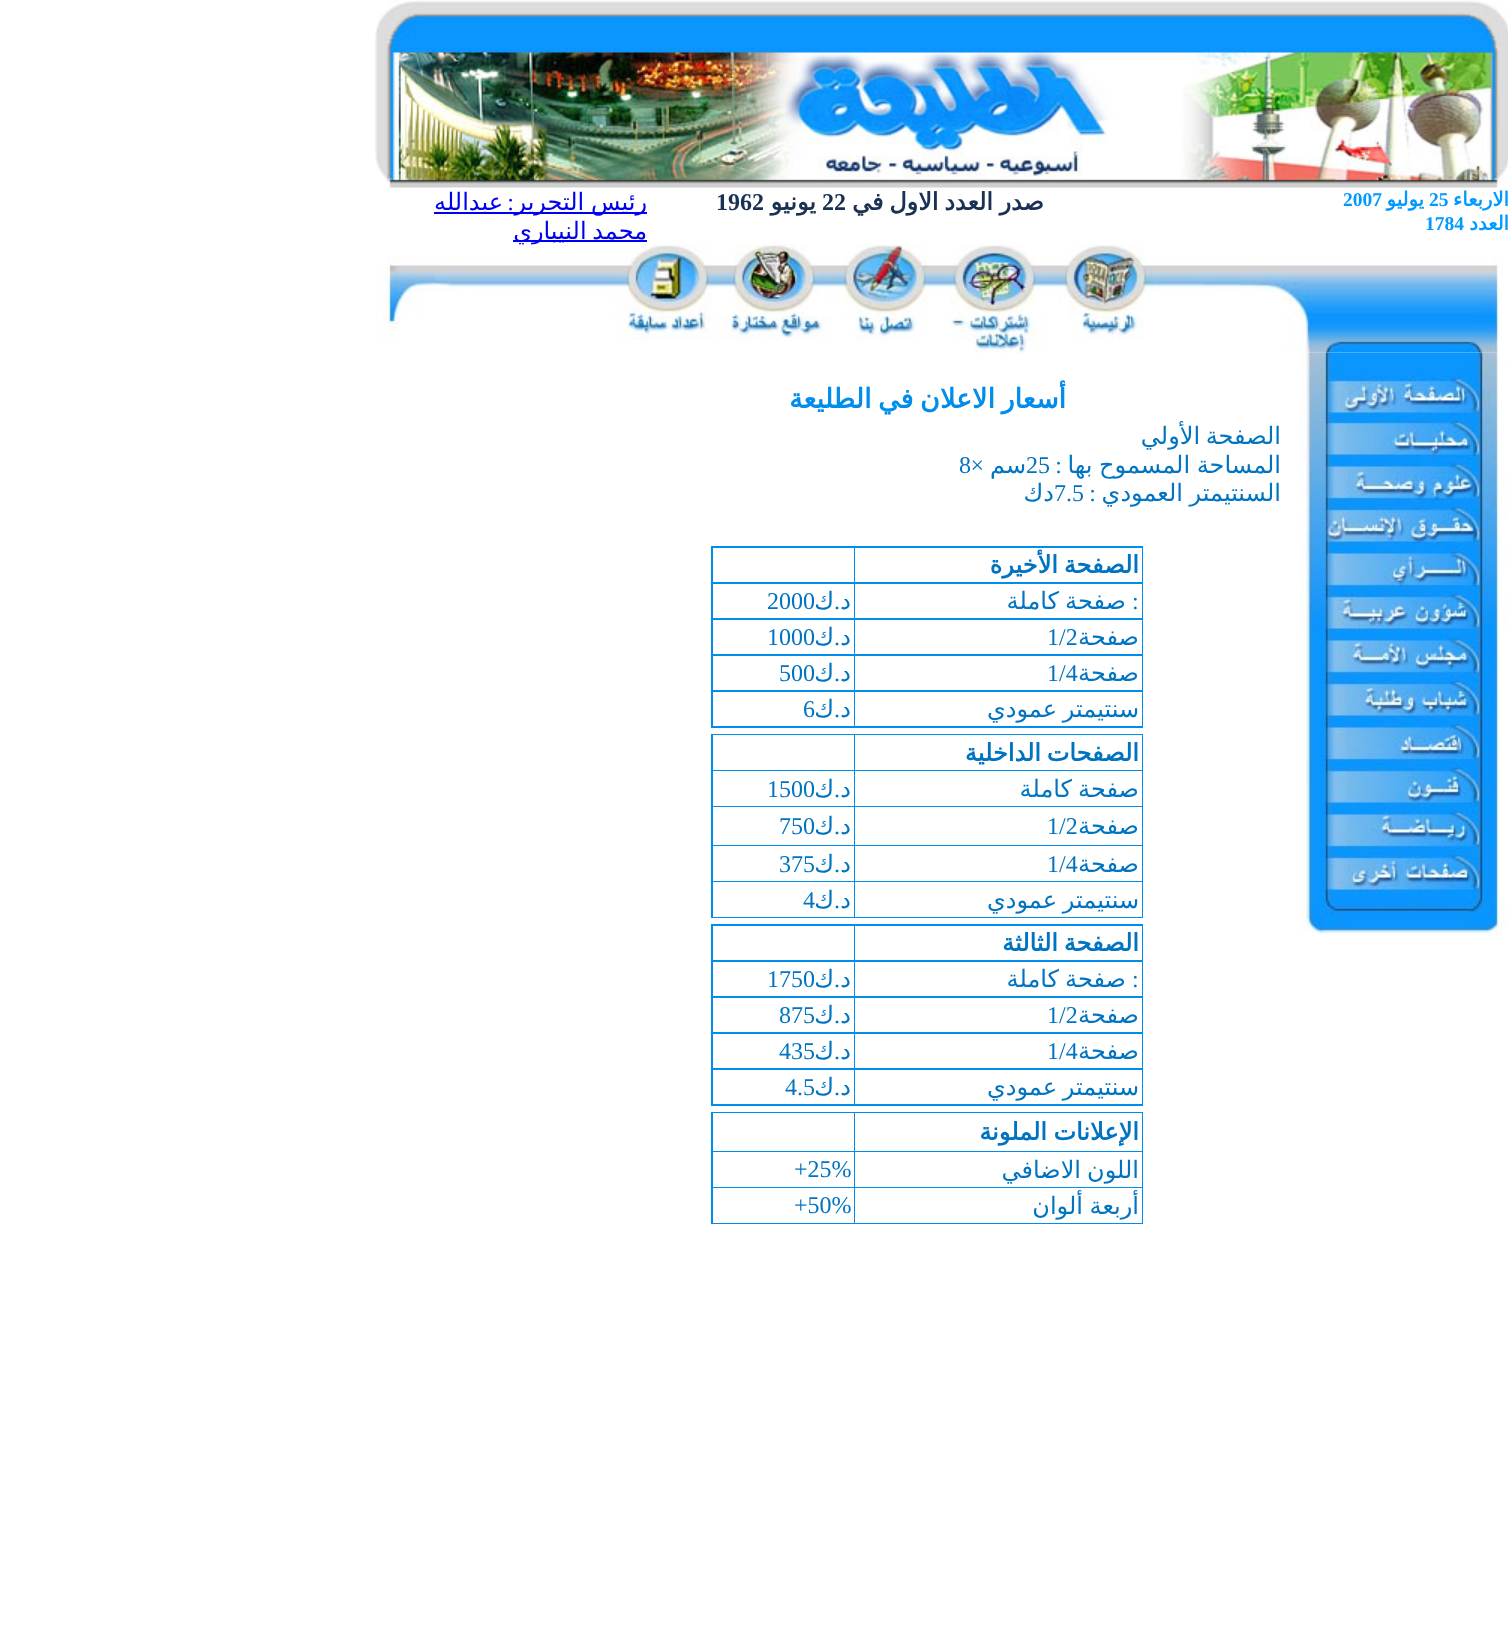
<!DOCTYPE html>
<meta charset="utf-8">
<style>body { margin: 0 } canvas { display: block }</style>
<canvas id="canvas" width="1508" height="1645"></canvas>
<script type="module">
  const canvas = document.getElementById("canvas");
  const ctx = canvas.getContext("2d");
  ctx.miterLimit = 4;
  ctx.fontKerning = "normal";
  async function loadImage(src) {
    const img = new Image();
    img.src = src;
    await img.decode();
    return img;
  }

  ctx.fillStyle = "#ffffff";
  ctx.fillRect(0, 0, 1508, 1645);
  ctx.drawImage(await loadImage("img1.png"), 375, 0, 1133, 188);
  ctx.direction = "rtl";
  ctx.font = "bold 19.5px DejaVu Sans";
  ctx.fillStyle = "#0099ff";
  ctx.fillText("الاربعاء", 1509, 206);
  ctx.direction = "ltr";
  ctx.font = "bold 19.5px Liberation Serif";
  ctx.fillText("25", 1429, 206);
  ctx.direction = "rtl";
  ctx.font = "bold 19.5px DejaVu Sans";
  ctx.fillText("يوليو", 1424, 206);
  ctx.direction = "ltr";
  ctx.font = "bold 19.5px Liberation Serif";
  ctx.fillText("2007", 1343, 206);
  ctx.direction = "rtl";
  ctx.font = "bold 19.5px DejaVu Sans";
  ctx.fillText("العدد", 1509, 230);
  ctx.direction = "ltr";
  ctx.font = "bold 19.5px Liberation Serif";
  ctx.fillText("1784", 1425, 230);
  ctx.direction = "rtl";
  ctx.font = "bold 24px DejaVu Sans";
  ctx.fillStyle = "#1a3153";
  ctx.fillText("صدر", 1044, 210);
  ctx.wordSpacing = "-2px";
  ctx.fillText("العدد الاول في", 993, 210);
  ctx.wordSpacing = "0px";
  ctx.direction = "ltr";
  ctx.font = "bold 24px Liberation Serif";
  ctx.fillText("22", 822, 210);
  ctx.direction = "rtl";
  ctx.font = "bold 24px DejaVu Sans";
  ctx.fillText("يونيو", 816, 210);
  ctx.direction = "ltr";
  ctx.font = "bold 24px Liberation Serif";
  ctx.fillText("1962", 716, 210);
  ctx.fillStyle = "#0000ee";
  ctx.fillRect(434, 212, 213, 2);
  ctx.wordSpacing = "-1px";
  ctx.direction = "rtl";
  ctx.font = "24px DejaVu Sans";
  ctx.fillText("رئيس التحرير", 647, 210);
  ctx.wordSpacing = "0px";
  ctx.font = "24px Liberation Serif";
  ctx.fillText(":", 514, 210);
  ctx.font = "24px DejaVu Sans";
  ctx.fillText("عبدالله", 503, 210);
  ctx.fillRect(513, 240, 134, 2);
  ctx.wordSpacing = "-2px";
  ctx.fillText("محمد النيباري", 647, 239);
  ctx.drawImage(await loadImage("img2.png"), 375, 244, 1128, 109);
  ctx.drawImage(await loadImage("img3.png"), 1299, 352, 209, 584);
  ctx.wordSpacing = "0px";
  ctx.font = "bold 27px DejaVu Sans";
  ctx.fillStyle = "#008dec";
  ctx.fillText("أسعار", 1066, 408);
  ctx.wordSpacing = "-2px";
  ctx.fillText("الاعلان في الطليعة", 995, 408);
  ctx.font = "24px DejaVu Sans";
  ctx.fillStyle = "#0074c1";
  ctx.fillText("الصفحة الأولي", 1281, 444);
  ctx.wordSpacing = "-1px";
  ctx.fillText("المساحة المسموح بها", 1281, 473);
  ctx.wordSpacing = "0px";
  ctx.font = "24px Liberation Serif";
  ctx.fillText(":", 1062, 473);
  ctx.direction = "ltr";
  ctx.fillText("25", 1026, 473);
  ctx.direction = "rtl";
  ctx.font = "24px DejaVu Sans";
  ctx.fillText("سم", 1026, 473);
  ctx.font = "24px Liberation Serif";
  ctx.fillText("×", 984, 473);
  ctx.direction = "ltr";
  ctx.fillText("8", 959, 473);
  ctx.wordSpacing = "-1px";
  ctx.direction = "rtl";
  ctx.font = "24px DejaVu Sans";
  ctx.fillText("السنتيمتر العمودي", 1281, 501);
  ctx.wordSpacing = "0px";
  ctx.font = "24px Liberation Serif";
  ctx.fillText(":", 1096, 501);
  ctx.direction = "ltr";
  ctx.fillText("7.5", 1054, 501);
  ctx.direction = "rtl";
  ctx.font = "24px DejaVu Sans";
  ctx.fillText("دك", 1054, 501);
  ctx.fillStyle = "#008dec";
  ctx.fillRect(711, 546, 432, 182);
  ctx.fillStyle = "#ffffff";
  ctx.fillRect(855, 548, 287, 34);
  ctx.font = "bold 24px DejaVu Sans";
  ctx.fillStyle = "#0074c1";
  ctx.fillText("الصفحة", 1139, 573);
  ctx.fillText("الأخيرة", 1058, 573);
  ctx.fillStyle = "#ffffff";
  ctx.fillRect(713, 548, 141, 34);
  ctx.fillRect(855, 584, 287, 34);
  ctx.direction = "ltr";
  ctx.font = "24px Liberation Serif";
  ctx.fillStyle = "#0074c1";
  ctx.fillText(":", 1132, 609);
  ctx.direction = "rtl";
  ctx.font = "24px DejaVu Sans";
  ctx.fillText("صفحة", 1126, 609);
  ctx.fillText("كاملة", 1059, 609);
  ctx.fillStyle = "#ffffff";
  ctx.fillRect(713, 584, 141, 34);
  ctx.fillStyle = "#0074c1";
  ctx.fillText("د", 851, 609);
  ctx.font = "24px Liberation Serif";
  ctx.fillText(".", 840, 609);
  ctx.font = "24px DejaVu Sans";
  ctx.fillText("ك", 834, 609);
  ctx.direction = "ltr";
  ctx.font = "24px Liberation Serif";
  ctx.fillText("2000", 767, 609);
  ctx.fillStyle = "#ffffff";
  ctx.fillRect(855, 620, 287, 34);
  ctx.direction = "rtl";
  ctx.font = "24px DejaVu Sans";
  ctx.fillStyle = "#0074c1";
  ctx.fillText("صفحة", 1139, 645);
  ctx.direction = "ltr";
  ctx.font = "24px Liberation Serif";
  ctx.fillText("1/2", 1047, 645);
  ctx.fillStyle = "#ffffff";
  ctx.fillRect(713, 620, 141, 34);
  ctx.direction = "rtl";
  ctx.font = "24px DejaVu Sans";
  ctx.fillStyle = "#0074c1";
  ctx.fillText("د", 851, 645);
  ctx.font = "24px Liberation Serif";
  ctx.fillText(".", 840, 645);
  ctx.font = "24px DejaVu Sans";
  ctx.fillText("ك", 834, 645);
  ctx.direction = "ltr";
  ctx.font = "24px Liberation Serif";
  ctx.fillText("1000", 767, 645);
  ctx.fillStyle = "#ffffff";
  ctx.fillRect(855, 656, 287, 34);
  ctx.direction = "rtl";
  ctx.font = "24px DejaVu Sans";
  ctx.fillStyle = "#0074c1";
  ctx.fillText("صفحة", 1139, 681);
  ctx.direction = "ltr";
  ctx.font = "24px Liberation Serif";
  ctx.fillText("1/4", 1047, 681);
  ctx.fillStyle = "#ffffff";
  ctx.fillRect(713, 656, 141, 34);
  ctx.direction = "rtl";
  ctx.font = "24px DejaVu Sans";
  ctx.fillStyle = "#0074c1";
  ctx.fillText("د", 851, 681);
  ctx.font = "24px Liberation Serif";
  ctx.fillText(".", 840, 681);
  ctx.font = "24px DejaVu Sans";
  ctx.fillText("ك", 834, 681);
  ctx.direction = "ltr";
  ctx.font = "24px Liberation Serif";
  ctx.fillText("500", 779, 681);
  ctx.fillStyle = "#ffffff";
  ctx.fillRect(855, 692, 287, 34);
  ctx.direction = "rtl";
  ctx.font = "24px DejaVu Sans";
  ctx.fillStyle = "#0074c1";
  ctx.fillText("سنتيمتر", 1139, 717);
  ctx.fillText("عمودي", 1057, 717);
  ctx.fillStyle = "#ffffff";
  ctx.fillRect(713, 692, 141, 34);
  ctx.fillStyle = "#0074c1";
  ctx.fillText("د", 851, 717);
  ctx.font = "24px Liberation Serif";
  ctx.fillText(".", 840, 717);
  ctx.font = "24px DejaVu Sans";
  ctx.fillText("ك", 834, 717);
  ctx.direction = "ltr";
  ctx.font = "24px Liberation Serif";
  ctx.fillText("6", 803, 717);
  ctx.fillStyle = "#008dec";
  ctx.fillRect(711, 734, 432, 184);
  ctx.fillStyle = "#ffffff";
  ctx.fillRect(855, 735, 287, 35);
  ctx.direction = "rtl";
  ctx.font = "bold 24px DejaVu Sans";
  ctx.fillStyle = "#0074c1";
  ctx.fillText("الصفحات", 1139, 761);
  ctx.fillText("الداخلية", 1041, 761);
  ctx.fillStyle = "#ffffff";
  ctx.fillRect(713, 735, 141, 35);
  ctx.fillRect(855, 771, 287, 35);
  ctx.font = "24px DejaVu Sans";
  ctx.fillStyle = "#0074c1";
  ctx.fillText("صفحة", 1139, 797);
  ctx.fillText("كاملة", 1072, 797);
  ctx.fillStyle = "#ffffff";
  ctx.fillRect(713, 771, 141, 35);
  ctx.fillStyle = "#0074c1";
  ctx.fillText("د", 851, 797);
  ctx.font = "24px Liberation Serif";
  ctx.fillText(".", 840, 797);
  ctx.font = "24px DejaVu Sans";
  ctx.fillText("ك", 834, 797);
  ctx.direction = "ltr";
  ctx.font = "24px Liberation Serif";
  ctx.fillText("1500", 767, 797);
  ctx.fillStyle = "#ffffff";
  ctx.fillRect(855, 807, 287, 38);
  ctx.direction = "rtl";
  ctx.font = "24px DejaVu Sans";
  ctx.fillStyle = "#0074c1";
  ctx.fillText("صفحة", 1139, 834);
  ctx.direction = "ltr";
  ctx.font = "24px Liberation Serif";
  ctx.fillText("1/2", 1047, 834);
  ctx.fillStyle = "#ffffff";
  ctx.fillRect(713, 807, 141, 38);
  ctx.direction = "rtl";
  ctx.font = "24px DejaVu Sans";
  ctx.fillStyle = "#0074c1";
  ctx.fillText("د", 851, 834);
  ctx.font = "24px Liberation Serif";
  ctx.fillText(".", 840, 834);
  ctx.font = "24px DejaVu Sans";
  ctx.fillText("ك", 834, 834);
  ctx.direction = "ltr";
  ctx.font = "24px Liberation Serif";
  ctx.fillText("750", 779, 834);
  ctx.fillStyle = "#ffffff";
  ctx.fillRect(855, 846, 287, 35);
  ctx.direction = "rtl";
  ctx.font = "24px DejaVu Sans";
  ctx.fillStyle = "#0074c1";
  ctx.fillText("صفحة", 1139, 872);
  ctx.direction = "ltr";
  ctx.font = "24px Liberation Serif";
  ctx.fillText("1/4", 1047, 872);
  ctx.fillStyle = "#ffffff";
  ctx.fillRect(713, 846, 141, 35);
  ctx.direction = "rtl";
  ctx.font = "24px DejaVu Sans";
  ctx.fillStyle = "#0074c1";
  ctx.fillText("د", 851, 872);
  ctx.font = "24px Liberation Serif";
  ctx.fillText(".", 840, 872);
  ctx.font = "24px DejaVu Sans";
  ctx.fillText("ك", 834, 872);
  ctx.direction = "ltr";
  ctx.font = "24px Liberation Serif";
  ctx.fillText("375", 779, 872);
  ctx.fillStyle = "#ffffff";
  ctx.fillRect(855, 882, 287, 35);
  ctx.direction = "rtl";
  ctx.font = "24px DejaVu Sans";
  ctx.fillStyle = "#0074c1";
  ctx.fillText("سنتيمتر", 1139, 908);
  ctx.fillText("عمودي", 1057, 908);
  ctx.fillStyle = "#ffffff";
  ctx.fillRect(713, 882, 141, 35);
  ctx.fillStyle = "#0074c1";
  ctx.fillText("د", 851, 908);
  ctx.font = "24px Liberation Serif";
  ctx.fillText(".", 840, 908);
  ctx.font = "24px DejaVu Sans";
  ctx.fillText("ك", 834, 908);
  ctx.direction = "ltr";
  ctx.font = "24px Liberation Serif";
  ctx.fillText("4", 803, 908);
  ctx.fillStyle = "#008dec";
  ctx.fillRect(711, 924, 432, 182);
  ctx.fillStyle = "#ffffff";
  ctx.fillRect(855, 926, 287, 34);
  ctx.direction = "rtl";
  ctx.font = "bold 24px DejaVu Sans";
  ctx.fillStyle = "#0074c1";
  ctx.fillText("الصفحة", 1139, 951);
  ctx.fillText("الثالثة", 1058, 951);
  ctx.fillStyle = "#ffffff";
  ctx.fillRect(713, 926, 141, 34);
  ctx.fillRect(855, 962, 287, 34);
  ctx.direction = "ltr";
  ctx.font = "24px Liberation Serif";
  ctx.fillStyle = "#0074c1";
  ctx.fillText(":", 1132, 987);
  ctx.direction = "rtl";
  ctx.font = "24px DejaVu Sans";
  ctx.fillText("صفحة", 1126, 987);
  ctx.fillText("كاملة", 1059, 987);
  ctx.fillStyle = "#ffffff";
  ctx.fillRect(713, 962, 141, 34);
  ctx.fillStyle = "#0074c1";
  ctx.fillText("د", 851, 987);
  ctx.font = "24px Liberation Serif";
  ctx.fillText(".", 840, 987);
  ctx.font = "24px DejaVu Sans";
  ctx.fillText("ك", 834, 987);
  ctx.direction = "ltr";
  ctx.font = "24px Liberation Serif";
  ctx.fillText("1750", 767, 987);
  ctx.fillStyle = "#ffffff";
  ctx.fillRect(855, 998, 287, 34);
  ctx.direction = "rtl";
  ctx.font = "24px DejaVu Sans";
  ctx.fillStyle = "#0074c1";
  ctx.fillText("صفحة", 1139, 1023);
  ctx.direction = "ltr";
  ctx.font = "24px Liberation Serif";
  ctx.fillText("1/2", 1047, 1023);
  ctx.fillStyle = "#ffffff";
  ctx.fillRect(713, 998, 141, 34);
  ctx.direction = "rtl";
  ctx.font = "24px DejaVu Sans";
  ctx.fillStyle = "#0074c1";
  ctx.fillText("د", 851, 1023);
  ctx.font = "24px Liberation Serif";
  ctx.fillText(".", 840, 1023);
  ctx.font = "24px DejaVu Sans";
  ctx.fillText("ك", 834, 1023);
  ctx.direction = "ltr";
  ctx.font = "24px Liberation Serif";
  ctx.fillText("875", 779, 1023);
  ctx.fillStyle = "#ffffff";
  ctx.fillRect(855, 1034, 287, 34);
  ctx.direction = "rtl";
  ctx.font = "24px DejaVu Sans";
  ctx.fillStyle = "#0074c1";
  ctx.fillText("صفحة", 1139, 1059);
  ctx.direction = "ltr";
  ctx.font = "24px Liberation Serif";
  ctx.fillText("1/4", 1047, 1059);
  ctx.fillStyle = "#ffffff";
  ctx.fillRect(713, 1034, 141, 34);
  ctx.direction = "rtl";
  ctx.font = "24px DejaVu Sans";
  ctx.fillStyle = "#0074c1";
  ctx.fillText("د", 851, 1059);
  ctx.font = "24px Liberation Serif";
  ctx.fillText(".", 840, 1059);
  ctx.font = "24px DejaVu Sans";
  ctx.fillText("ك", 834, 1059);
  ctx.direction = "ltr";
  ctx.font = "24px Liberation Serif";
  ctx.fillText("435", 779, 1059);
  ctx.fillStyle = "#ffffff";
  ctx.fillRect(855, 1070, 287, 34);
  ctx.direction = "rtl";
  ctx.font = "24px DejaVu Sans";
  ctx.fillStyle = "#0074c1";
  ctx.fillText("سنتيمتر", 1139, 1095);
  ctx.fillText("عمودي", 1057, 1095);
  ctx.fillStyle = "#ffffff";
  ctx.fillRect(713, 1070, 141, 34);
  ctx.fillStyle = "#0074c1";
  ctx.fillText("د", 851, 1095);
  ctx.font = "24px Liberation Serif";
  ctx.fillText(".", 840, 1095);
  ctx.font = "24px DejaVu Sans";
  ctx.fillText("ك", 834, 1095);
  ctx.direction = "ltr";
  ctx.font = "24px Liberation Serif";
  ctx.fillText("4.5", 785, 1095);
  ctx.fillStyle = "#008dec";
  ctx.fillRect(711, 1112, 432, 112);
  ctx.fillStyle = "#ffffff";
  ctx.fillRect(855, 1113, 287, 38);
  ctx.direction = "rtl";
  ctx.font = "bold 24px DejaVu Sans";
  ctx.fillStyle = "#0074c1";
  ctx.fillText("الإعلانات", 1139, 1140);
  ctx.fillText("الملونة", 1047, 1140);
  ctx.fillStyle = "#ffffff";
  ctx.fillRect(713, 1113, 141, 38);
  ctx.fillRect(855, 1152, 287, 35);
  ctx.font = "24px DejaVu Sans";
  ctx.fillStyle = "#0074c1";
  ctx.fillText("اللون", 1139, 1178);
  ctx.fillText("الاضافي", 1081, 1178);
  ctx.fillStyle = "#ffffff";
  ctx.fillRect(713, 1152, 141, 35);
  ctx.direction = "ltr";
  ctx.font = "24px Liberation Serif";
  ctx.fillStyle = "#0074c1";
  ctx.fillText("+25%", 794, 1177);
  ctx.fillStyle = "#ffffff";
  ctx.fillRect(855, 1188, 287, 35);
  ctx.direction = "rtl";
  ctx.font = "24px DejaVu Sans";
  ctx.fillStyle = "#0074c1";
  ctx.fillText("أربعة", 1139, 1214);
  ctx.fillText("ألوان", 1083, 1214);
  ctx.fillStyle = "#ffffff";
  ctx.fillRect(713, 1188, 141, 35);
  ctx.direction = "ltr";
  ctx.font = "24px Liberation Serif";
  ctx.fillStyle = "#0074c1";
  ctx.fillText("+50%", 794, 1213);
</script>
